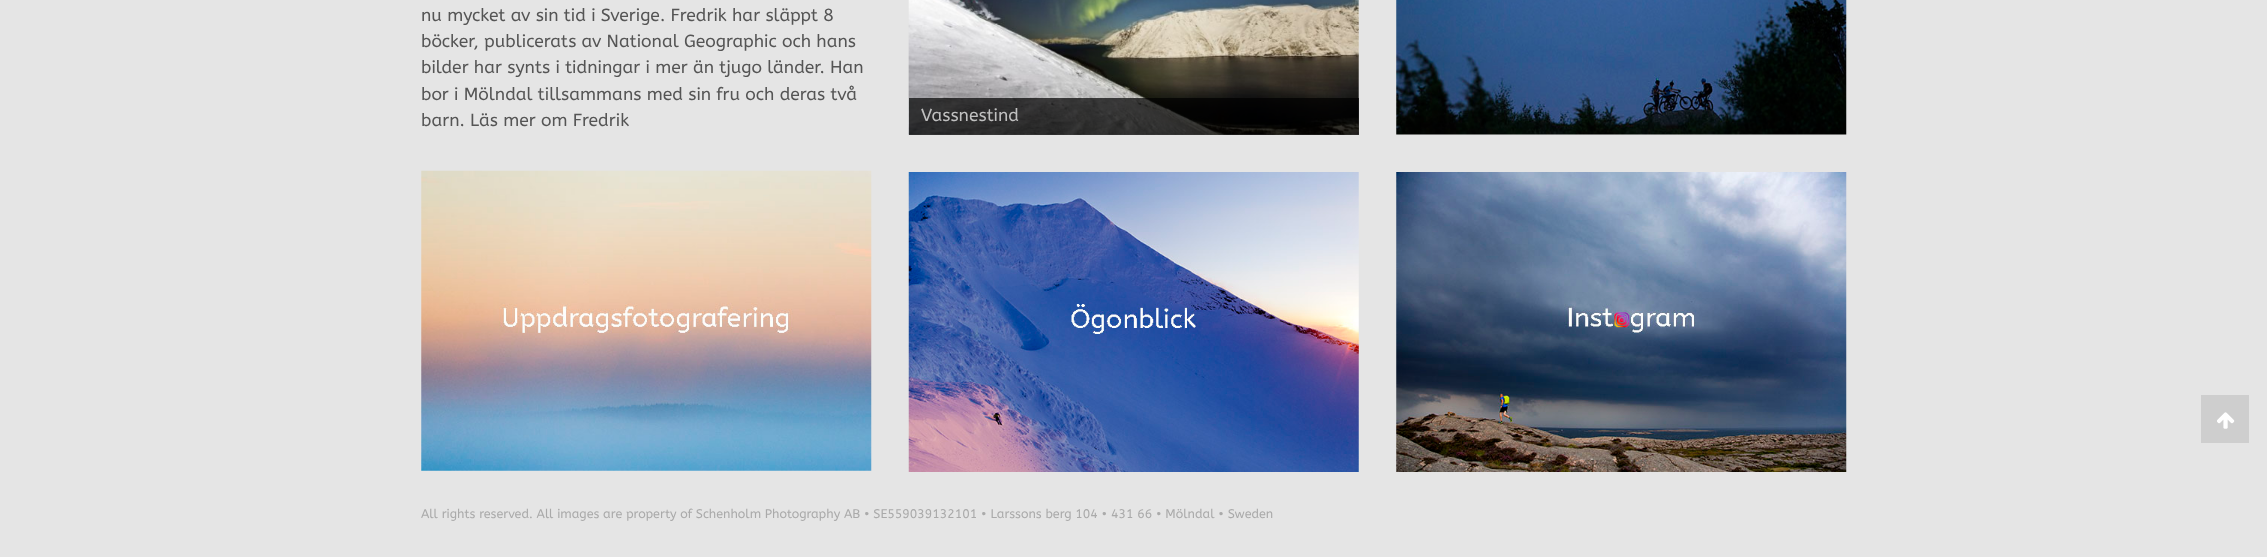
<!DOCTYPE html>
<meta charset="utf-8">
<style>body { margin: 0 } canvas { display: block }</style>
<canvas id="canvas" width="2267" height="557"></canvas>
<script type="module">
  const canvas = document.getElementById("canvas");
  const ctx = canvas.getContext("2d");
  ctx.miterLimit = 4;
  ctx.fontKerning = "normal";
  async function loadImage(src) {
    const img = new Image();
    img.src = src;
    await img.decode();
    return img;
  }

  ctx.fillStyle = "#e5e5e5";
  ctx.fillRect(0, 0, 2267, 557);
  ctx.font = "17.5px ABeeZee";
  ctx.fillStyle = "#555555";
  ctx.fillText("nu mycket av sin tid i Sverige. Fredrik har släppt 8", 421, 21);
  ctx.fillText("böcker, publicerats av National Geographic och hans", 421, 47);
  ctx.fillText("bilder har synts i tidningar i mer än tjugo länder. Han", 421, 73);
  ctx.fillText("bor i Mölndal tillsammans med sin fru och deras två", 421, 100);
  ctx.fillText("barn. Läs mer om Fredrik", 421, 126);
  ctx.drawImage(await loadImage("img1.png"), 421, 170, 451, 301);
  ctx.drawImage(await loadImage("img2.png"), 908, 0, 451, 135);
  ctx.fillStyle = "rgba(0, 0, 0, 0.7)";
  ctx.fillRect(909, 98, 450, 37);
  ctx.fillStyle = "#c0c0c0";
  ctx.fillText("Vassnestind", 921, 121);
  ctx.drawImage(await loadImage("img3.png"), 908, 172, 451, 300);
  ctx.drawImage(await loadImage("img4.png"), 1396, 0, 451, 135);
  ctx.drawImage(await loadImage("img5.png"), 1396, 172, 451, 300);
  ctx.font = "12.5px ABeeZee";
  ctx.fillStyle = "#aaaaaa";
  ctx.fillText("All rights reserved. All images are property of Schenholm Photography AB • SE559039132101 • Larssons berg 104 • 431 66 • Mölndal • Sweden", 421, 518);
  ctx.fillStyle = "#cecece";
  ctx.fillRect(2201, 395, 48, 48);
  ctx.drawImage(await loadImage("img6.png"), 2217, 412, 18, 17);
</script>
